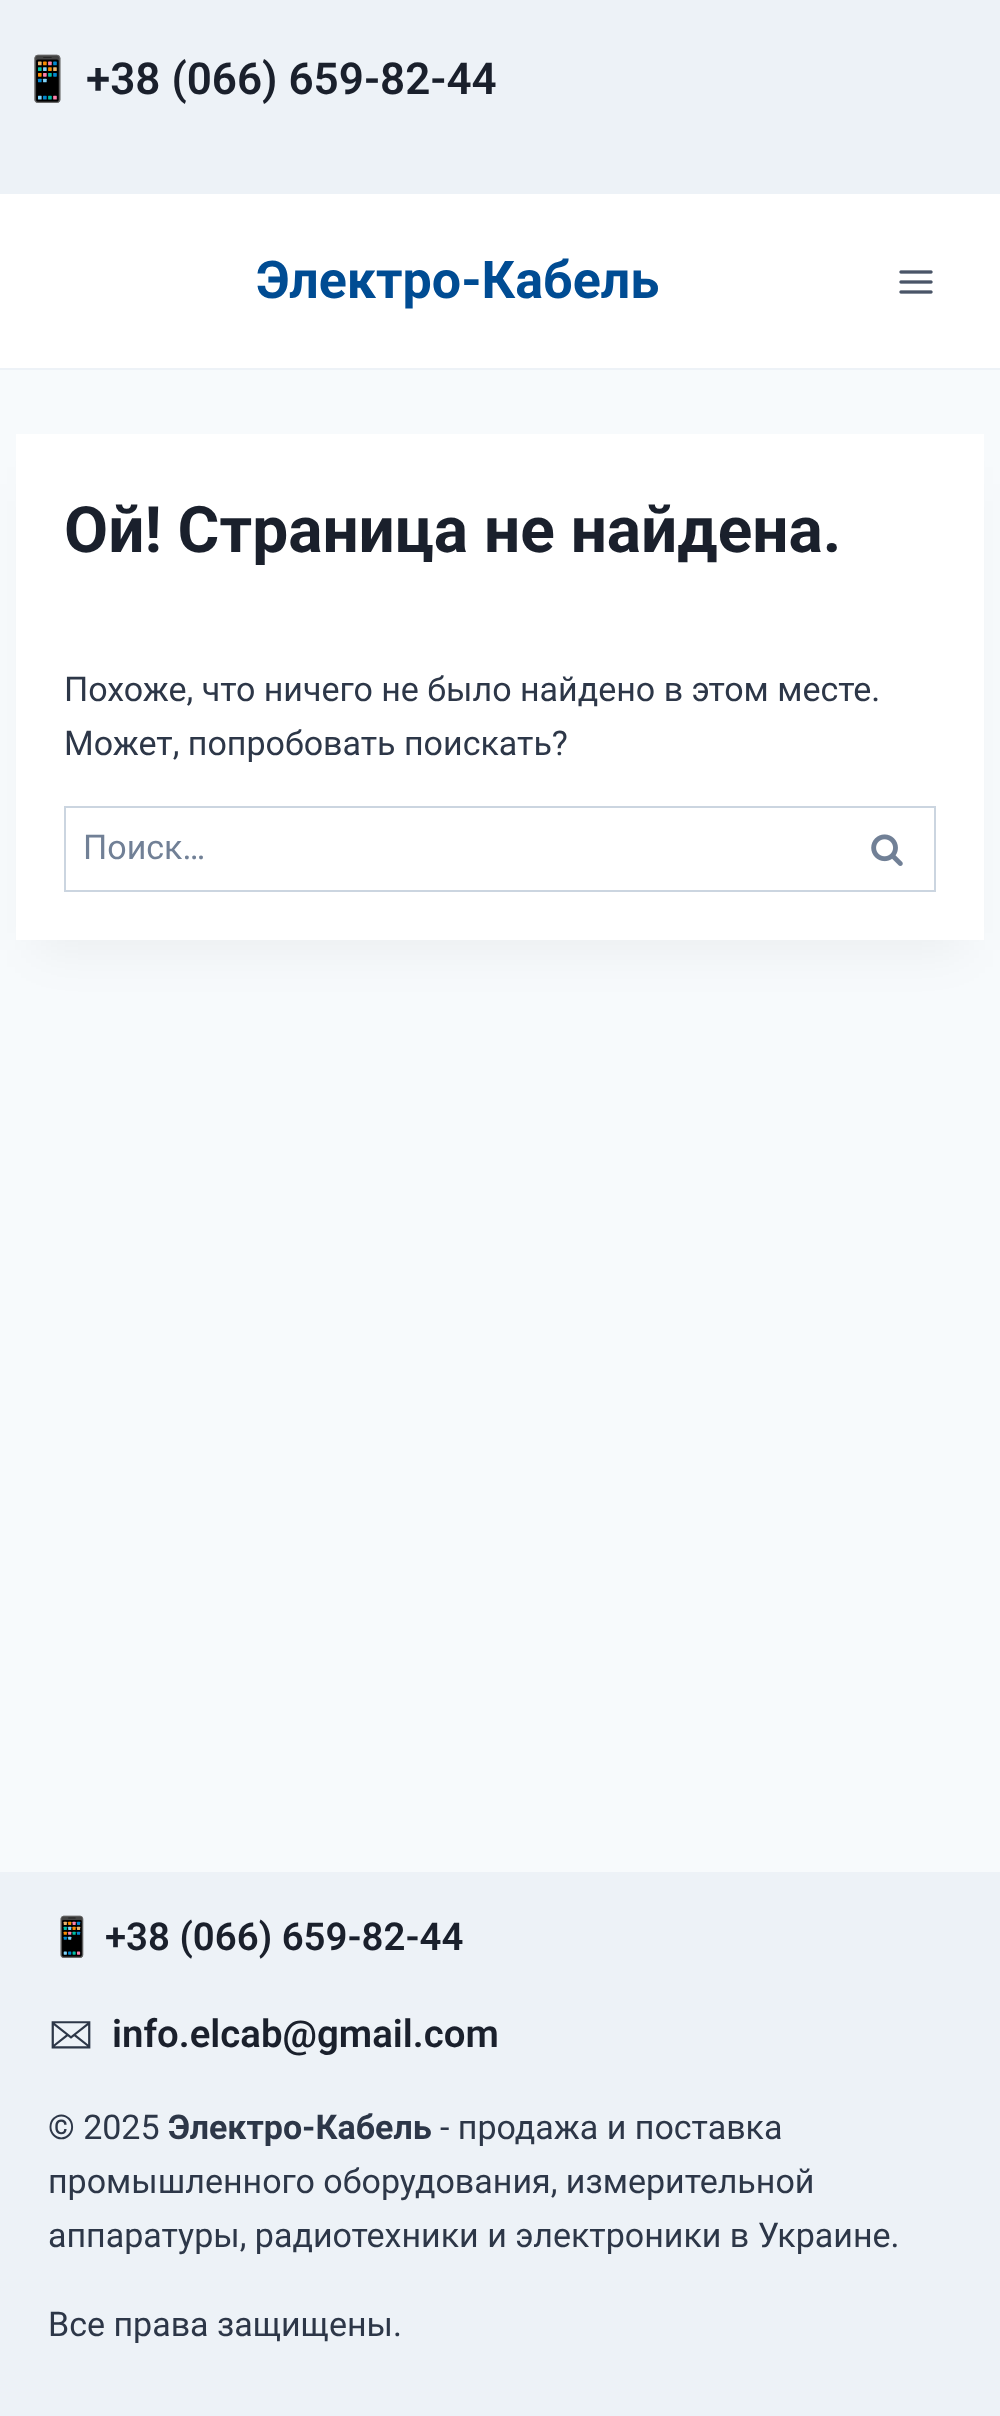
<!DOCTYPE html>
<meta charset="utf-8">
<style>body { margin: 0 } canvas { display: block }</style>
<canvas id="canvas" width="1000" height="2416"></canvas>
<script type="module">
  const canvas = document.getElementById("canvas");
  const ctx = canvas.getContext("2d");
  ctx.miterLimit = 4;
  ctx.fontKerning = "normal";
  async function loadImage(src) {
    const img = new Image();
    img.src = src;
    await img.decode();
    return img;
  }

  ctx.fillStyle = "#f7fafc";
  ctx.fillRect(0, 0, 1000, 2416);
  ctx.fillStyle = "#ffffff";
  ctx.fillRect(0, 194, 1000, 174);
  ctx.fillStyle = "#edf2f7";
  ctx.fillRect(0, 0, 1000, 194);
  ctx.font = "44px Noto Color Emoji";
  ctx.fillStyle = "#2d3748";
  ctx.fillText("📱", 20, 94);
  ctx.font = "600 44px Roboto";
  ctx.fillStyle = "#1a202c";
  ctx.fillText("+38 (066) 659-82-44", 86, 94);
  ctx.fillStyle = "#edf2f7";
  ctx.fillRect(0, 368, 1000, 2);
  ctx.font = "bold 52px Roboto";
  ctx.fillStyle = "#004c93";
  ctx.fillText("Электро-Кабель", 256, 298);
  ctx.drawImage(await loadImage("img1.png"), 899, 270, 34, 24);
  ctx.fillStyle = "rgba(0, 0, 0, 0.05)";
  ctx.filter = "blur(25px)";
  ctx.beginPath();
  ctx.rect(36, 484, 928, 466);
  ctx.fill();
  ctx.filter = "none";
  ctx.fillStyle = "#ffffff";
  ctx.fillRect(16, 434, 968, 506);
  ctx.font = "bold 64px Roboto";
  ctx.fillStyle = "#1a202c";
  ctx.fillText("Ой! Страница не найдена.", 64, 552);
  ctx.font = "34px Roboto";
  ctx.fillStyle = "#2d3748";
  ctx.fillText("Похоже, что ничего не было найдено в этом месте.", 64, 701);
  ctx.fillText("Может, попробовать поискать?", 64, 755);
  ctx.strokeStyle = "#cbd5e0";
  ctx.lineWidth = 2;
  ctx.strokeRect(65, 807, 870, 84);
  ctx.fillStyle = "#718096";
  ctx.fillText("Поиск…", 83, 859);
  ctx.drawImage(await loadImage("img2.png"), 871, 834, 32, 32);
  ctx.fillStyle = "#edf2f7";
  ctx.fillRect(0, 1872, 1000, 544);
  ctx.font = "38.4px Noto Color Emoji";
  ctx.fillStyle = "#2d3748";
  ctx.fillText("📱", 48, 1950);
  ctx.font = "600 38.4px Roboto";
  ctx.fillStyle = "#1a202c";
  ctx.fillText("+38 (066) 659-82-44", 105, 1950);
  ctx.font = "bold 38.4px 'Noto Sans Symbols 2'";
  ctx.fillStyle = "#2d3748";
  ctx.fillText("🖂", 48, 2047);
  ctx.font = "600 38.4px Roboto";
  ctx.fillStyle = "#1a202c";
  ctx.fillText("info.elcab@gmail.com", 112, 2047);
  ctx.font = "34px Roboto";
  ctx.fillStyle = "#2d3748";
  ctx.fillText("© 2025", 48, 2139);
  ctx.font = "bold 34px Roboto";
  ctx.fillText("Электро-Кабель", 168, 2139);
  ctx.font = "34px Roboto";
  ctx.fillText("- продажа и поставка", 440, 2139);
  ctx.fillText("промышленного оборудования, измерительной", 48, 2193);
  ctx.fillText("аппаратуры, радиотехники и электроники в Украине.", 48, 2247);
  ctx.fillText("Все права защищены.", 48, 2336);
</script>
